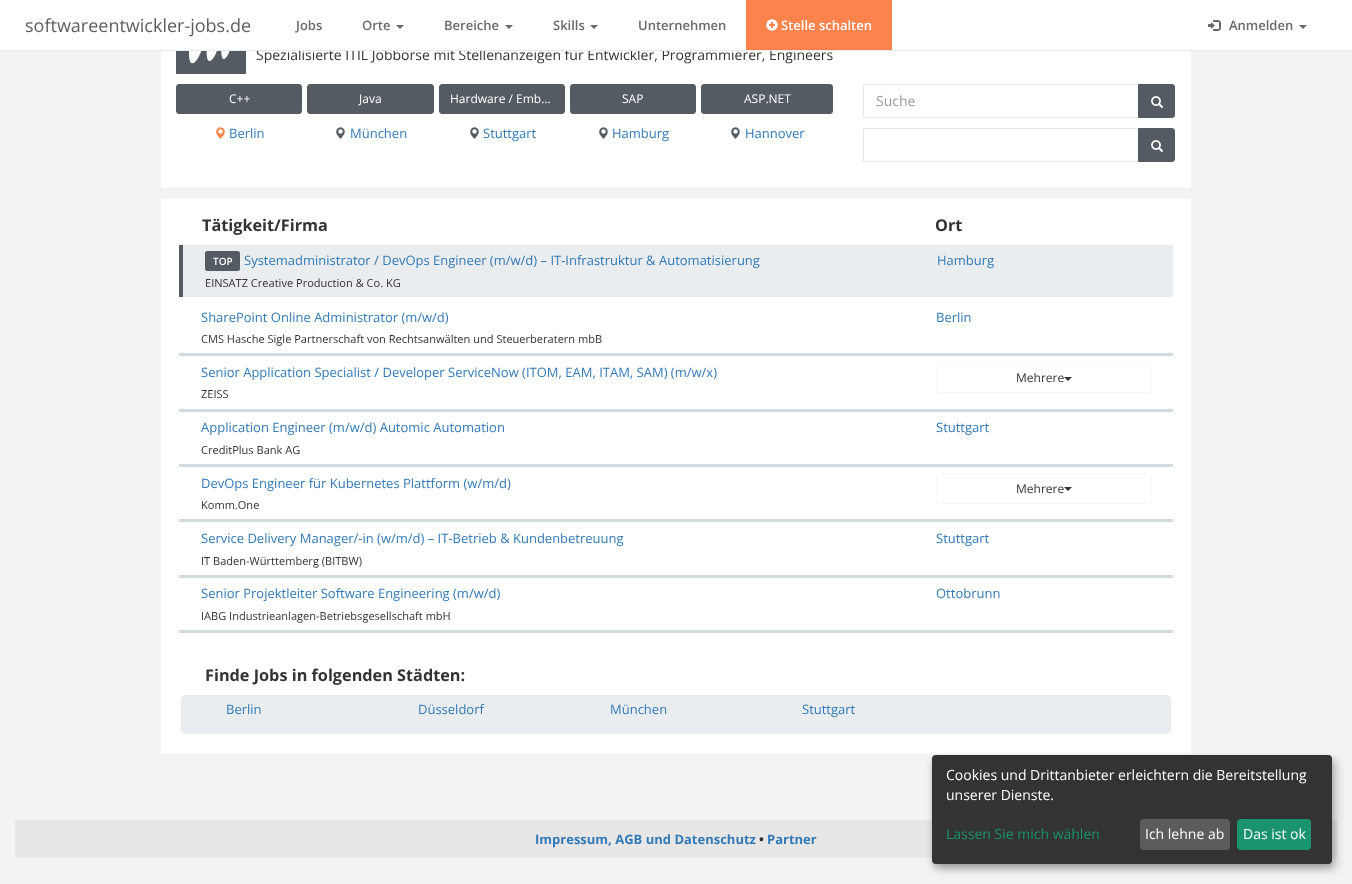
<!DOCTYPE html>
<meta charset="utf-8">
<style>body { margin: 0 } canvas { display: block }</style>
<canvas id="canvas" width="1352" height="884"></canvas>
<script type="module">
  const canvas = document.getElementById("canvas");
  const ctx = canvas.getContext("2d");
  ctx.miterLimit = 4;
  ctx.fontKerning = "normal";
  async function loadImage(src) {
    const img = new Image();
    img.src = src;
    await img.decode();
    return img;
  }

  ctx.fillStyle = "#f3f3f4";
  ctx.fillRect(0, 0, 1352, 884);
  ctx.fillStyle = "#ffffff";
  ctx.fillRect(161, 51, 1030, 136);
  ctx.font = "14px Open Sans";
  ctx.fillStyle = "#333333";
  ctx.fillText("Spezialisierte ITIL Jobbörse mit Stellenanzeigen für Entwickler, Programmierer, Engineers", 256, 60);
  ctx.fillStyle = "#ffffff";
  ctx.fillRect(0, 0, 1352, 50);
  ctx.fillStyle = "#e7eaec";
  ctx.fillRect(0, 50, 1352, 1);
  ctx.font = "18px Open Sans";
  ctx.fillStyle = "#5e5e5e";
  ctx.fillText("softwareentwickler-jobs.de", 25, 32);
  ctx.font = "600 13px Open Sans";
  ctx.fillStyle = "#676a6c";
  ctx.fillText("Jobs", 296, 30);
  ctx.fillText("Orte", 362, 30);
  ctx.beginPath();
  ctx.moveTo(396, 25);
  ctx.lineTo(404, 25);
  ctx.lineTo(400, 29);
  ctx.closePath();
  ctx.fill();
  ctx.fillText("Bereiche", 444, 30);
  ctx.beginPath();
  ctx.moveTo(505, 25);
  ctx.lineTo(513, 25);
  ctx.lineTo(509, 29);
  ctx.closePath();
  ctx.fill();
  ctx.fillText("Skills", 553, 30);
  ctx.beginPath();
  ctx.moveTo(590, 25);
  ctx.lineTo(598, 25);
  ctx.lineTo(594, 29);
  ctx.closePath();
  ctx.fill();
  ctx.fillText("Unternehmen", 638, 30);
  ctx.fillStyle = "#fe824c";
  ctx.fillRect(746, 0, 146, 50);
  ctx.drawImage(await loadImage("img1.png"), 766, 19, 12, 12);
  ctx.fillStyle = "#ffffff";
  ctx.fillText("Stelle schalten", 781, 30);
  ctx.drawImage(await loadImage("img2.png"), 1208, 20, 13, 11);
  ctx.fillStyle = "#676a6c";
  ctx.fillText("Anmelden", 1229, 30);
  ctx.beginPath();
  ctx.moveTo(1299, 25);
  ctx.lineTo(1307, 25);
  ctx.lineTo(1303, 29);
  ctx.closePath();
  ctx.fill();
  ctx.fillStyle = "#f7f7f7";
  ctx.fillRect(161, 187, 1030, 1);
  ctx.drawImage(await loadImage("img3.png"), 176, 51, 70, 23);
  ctx.fillStyle = "#545b63";
  ctx.beginPath();
  ctx.roundRect(176.5, 84.5, 125, 29, 2.5);
  ctx.fill();
  ctx.strokeStyle = "#545b63";
  ctx.stroke();
  ctx.font = "12px Open Sans";
  ctx.fillStyle = "#ffffff";
  ctx.fillText("C++", 229, 103);
  ctx.fillStyle = "#545b63";
  ctx.beginPath();
  ctx.roundRect(307.5, 84.5, 126, 29, 2.5);
  ctx.fill();
  ctx.stroke();
  ctx.fillStyle = "#ffffff";
  ctx.fillText("Java", 359, 103);
  ctx.fillStyle = "#545b63";
  ctx.beginPath();
  ctx.roundRect(439.5, 84.5, 125, 29, 2.5);
  ctx.fill();
  ctx.stroke();
  ctx.fillStyle = "#ffffff";
  ctx.fillText("Hardware / Emb…", 450, 103);
  ctx.fillStyle = "#545b63";
  ctx.beginPath();
  ctx.roundRect(570.5, 84.5, 125, 29, 2.5);
  ctx.fill();
  ctx.stroke();
  ctx.fillStyle = "#ffffff";
  ctx.fillText("SAP", 622, 103);
  ctx.fillStyle = "#545b63";
  ctx.beginPath();
  ctx.roundRect(701.5, 84.5, 131, 29, 2.5);
  ctx.fill();
  ctx.stroke();
  ctx.fillStyle = "#ffffff";
  ctx.fillText("ASP.NET", 744, 103);
  ctx.drawImage(await loadImage("img4.png"), 216, 127, 9, 12);
  ctx.font = "13px Open Sans";
  ctx.fillStyle = "#337ab7";
  ctx.fillText("Berlin", 229, 138);
  ctx.drawImage(await loadImage("img5.png"), 336, 127, 9, 12);
  ctx.fillText("München", 350, 138);
  ctx.drawImage(await loadImage("img5.png"), 470, 127, 9, 12);
  ctx.fillText("Stuttgart", 483, 138);
  ctx.drawImage(await loadImage("img5.png"), 599, 127, 9, 12);
  ctx.fillText("Hamburg", 612, 138);
  ctx.drawImage(await loadImage("img5.png"), 731, 127, 9, 12);
  ctx.fillText("Hannover", 745, 138);
  ctx.beginPath();
  ctx.roundRect(863.5, 84.5, 275, 33, [0.5, 0, 0, 0.5]);
  ctx.strokeStyle = "#e5e6e7";
  ctx.stroke();
  ctx.font = "14px Open Sans";
  ctx.fillStyle = "#999999";
  ctx.fillText("Suche", 876, 106);
  ctx.fillStyle = "#545b63";
  ctx.beginPath();
  ctx.roundRect(1138.5, 84.5, 36, 33, [0, 2.5, 2.5, 0]);
  ctx.fill();
  ctx.strokeStyle = "#545b63";
  ctx.stroke();
  ctx.drawImage(await loadImage("img6.png"), 1151, 96, 12, 12);
  ctx.beginPath();
  ctx.roundRect(863.5, 128.5, 275, 33, [0.5, 0, 0, 0.5]);
  ctx.strokeStyle = "#e5e6e7";
  ctx.stroke();
  ctx.beginPath();
  ctx.roundRect(1138.5, 128.5, 36, 33, [0, 2.5, 2.5, 0]);
  ctx.fill();
  ctx.strokeStyle = "#545b63";
  ctx.stroke();
  ctx.drawImage(await loadImage("img6.png"), 1151, 140, 12, 12);
  ctx.fillStyle = "#ffffff";
  ctx.fillRect(161, 199, 1030, 555);
  ctx.fillStyle = "#f7f7f7";
  ctx.fillRect(161, 198, 1030, 1);
  ctx.font = "bold 16.25px Open Sans";
  ctx.fillStyle = "#333333";
  ctx.fillText("Tätigkeit/Firma", 202, 231);
  ctx.fillText("Ort", 935, 231);
  ctx.fillStyle = "#e9edef";
  ctx.fillRect(183, 245, 990, 52);
  ctx.fillStyle = "#545b63";
  ctx.fillRect(179, 245, 4, 52);
  ctx.beginPath();
  ctx.roundRect(205, 251, 35, 20, 2.5);
  ctx.fill();
  ctx.font = "600 10px Open Sans";
  ctx.fillStyle = "#ffffff";
  ctx.fillText("TOP", 213, 265);
  ctx.font = "13px Open Sans";
  ctx.fillStyle = "#337ab7";
  ctx.fillText("Systemadministrator / DevOps Engineer (m/w/d) – IT-Infrastruktur & Automatisierung", 244, 265);
  ctx.font = "11.05px Open Sans";
  ctx.fillStyle = "#333333";
  ctx.fillText("EINSATZ Creative Production & Co. KG", 205, 287);
  ctx.font = "13px Open Sans";
  ctx.fillStyle = "#337ab7";
  ctx.fillText("Hamburg", 937, 265);
  ctx.fillStyle = "#d1dade";
  ctx.fillRect(179, 353, 994, 3);
  ctx.fillStyle = "#337ab7";
  ctx.fillText("SharePoint Online Administrator (m/w/d)", 201, 322);
  ctx.font = "11.05px Open Sans";
  ctx.fillStyle = "#333333";
  ctx.fillText("CMS Hasche Sigle Partnerschaft von Rechtsanwälten und Steuerberatern mbB", 201, 343);
  ctx.font = "13px Open Sans";
  ctx.fillStyle = "#337ab7";
  ctx.fillText("Berlin", 936, 322);
  ctx.fillStyle = "#d1dade";
  ctx.fillRect(179, 409, 994, 3);
  ctx.fillStyle = "#337ab7";
  ctx.fillText("Senior Application Specialist / Developer ServiceNow (ITOM, EAM, ITAM, SAM) (m/w/x)", 201, 377);
  ctx.font = "11.05px Open Sans";
  ctx.fillStyle = "#333333";
  ctx.fillText("ZEISS", 201, 398);
  ctx.beginPath();
  ctx.roundRect(936.5, 363.5, 215, 29, 2.5);
  ctx.strokeStyle = "#f7f7f7";
  ctx.stroke();
  ctx.font = "12px Open Sans";
  ctx.fillText("Mehrere", 1016, 382);
  ctx.beginPath();
  ctx.moveTo(1064, 377);
  ctx.lineTo(1072, 377);
  ctx.lineTo(1068, 381);
  ctx.closePath();
  ctx.fill();
  ctx.fillStyle = "#d1dade";
  ctx.fillRect(179, 464, 994, 3);
  ctx.font = "13px Open Sans";
  ctx.fillStyle = "#337ab7";
  ctx.fillText("Application Engineer (m/w/d) Automic Automation", 201, 432);
  ctx.font = "11.05px Open Sans";
  ctx.fillStyle = "#333333";
  ctx.fillText("CreditPlus Bank AG", 201, 454);
  ctx.font = "13px Open Sans";
  ctx.fillStyle = "#337ab7";
  ctx.fillText("Stuttgart", 936, 432);
  ctx.fillStyle = "#d1dade";
  ctx.fillRect(179, 519, 994, 3);
  ctx.fillStyle = "#337ab7";
  ctx.fillText("DevOps Engineer für Kubernetes Plattform (w/m/d)", 201, 488);
  ctx.font = "11.05px Open Sans";
  ctx.fillStyle = "#333333";
  ctx.fillText("Komm.One", 201, 509);
  ctx.beginPath();
  ctx.roundRect(936.5, 474.5, 215, 29, 2.5);
  ctx.stroke();
  ctx.font = "12px Open Sans";
  ctx.fillText("Mehrere", 1016, 493);
  ctx.beginPath();
  ctx.moveTo(1064, 487);
  ctx.lineTo(1072, 487);
  ctx.lineTo(1068, 491);
  ctx.closePath();
  ctx.fill();
  ctx.fillStyle = "#d1dade";
  ctx.fillRect(179, 575, 994, 3);
  ctx.font = "13px Open Sans";
  ctx.fillStyle = "#337ab7";
  ctx.fillText("Service Delivery Manager/-in (w/m/d) – IT-Betrieb & Kundenbetreuung", 201, 543);
  ctx.font = "11.05px Open Sans";
  ctx.fillStyle = "#333333";
  ctx.fillText("IT Baden-Württemberg (BITBW)", 201, 565);
  ctx.font = "13px Open Sans";
  ctx.fillStyle = "#337ab7";
  ctx.fillText("Stuttgart", 936, 543);
  ctx.fillStyle = "#d1dade";
  ctx.fillRect(179, 630, 994, 3);
  ctx.fillStyle = "#337ab7";
  ctx.fillText("Senior Projektleiter Software Engineering (m/w/d)", 201, 598);
  ctx.font = "11.05px Open Sans";
  ctx.fillStyle = "#333333";
  ctx.fillText("IABG Industrieanlagen-Betriebsgesellschaft mbH", 201, 620);
  ctx.font = "13px Open Sans";
  ctx.fillStyle = "#337ab7";
  ctx.fillText("Ottobrunn", 936, 598);
  ctx.font = "bold 16.25px Open Sans";
  ctx.fillStyle = "#333333";
  ctx.fillText("Finde Jobs in folgenden Städten:", 205, 681);
  ctx.fillStyle = "#e9edef";
  ctx.beginPath();
  ctx.roundRect(181, 695, 990, 39, 5);
  ctx.fill();
  ctx.font = "13px Open Sans";
  ctx.fillStyle = "#337ab7";
  ctx.fillText("Berlin", 226, 714);
  ctx.fillText("Düsseldorf", 418, 714);
  ctx.fillText("München", 610, 714);
  ctx.fillText("Stuttgart", 802, 714);
  ctx.fillStyle = "#e7e7e8";
  ctx.fillRect(15, 820, 1322, 38);
  ctx.font = "bold 13px Open Sans";
  ctx.fillStyle = "#337ab7";
  ctx.fillText("Impressum, AGB und Datenschutz", 535, 844);
  ctx.fillStyle = "#333333";
  ctx.fillText("•", 759, 844);
  ctx.fillStyle = "#337ab7";
  ctx.fillText("Partner", 767, 844);
  ctx.fillStyle = "rgba(0, 0, 0, 0.19)";
  ctx.filter = "blur(5px)";
  ctx.beginPath();
  ctx.roundRect(937, 760, 400, 109, 4);
  ctx.fill();
  ctx.filter = "none";
  ctx.fillStyle = "rgba(0, 0, 0, 0.2)";
  ctx.filter = "blur(3px)";
  ctx.beginPath();
  ctx.roundRect(932, 759, 400, 109, 4);
  ctx.fill();
  ctx.filter = "none";
  ctx.fillStyle = "#333333";
  ctx.beginPath();
  ctx.roundRect(932, 755, 400, 109, 4);
  ctx.fill();
  ctx.font = "14px Open Sans";
  ctx.fillStyle = "#ffffff";
  ctx.fillText("Cookies und Drittanbieter erleichtern die Bereitstellung", 946, 780);
  ctx.fillText("unserer Dienste.", 946, 800);
  ctx.fillStyle = "#1a936f";
  ctx.fillText("Lassen Sie mich wählen", 946, 839);
  ctx.fillStyle = "#5c5c5c";
  ctx.beginPath();
  ctx.roundRect(1140, 819, 90, 31, 4);
  ctx.fill();
  ctx.fillStyle = "#ffffff";
  ctx.fillText("Ich lehne ab", 1145, 839);
  ctx.fillStyle = "#1a936f";
  ctx.beginPath();
  ctx.roundRect(1237, 819, 74, 31, 4);
  ctx.fill();
  ctx.fillStyle = "#ffffff";
  ctx.fillText("Das ist ok", 1243, 839);
</script>
